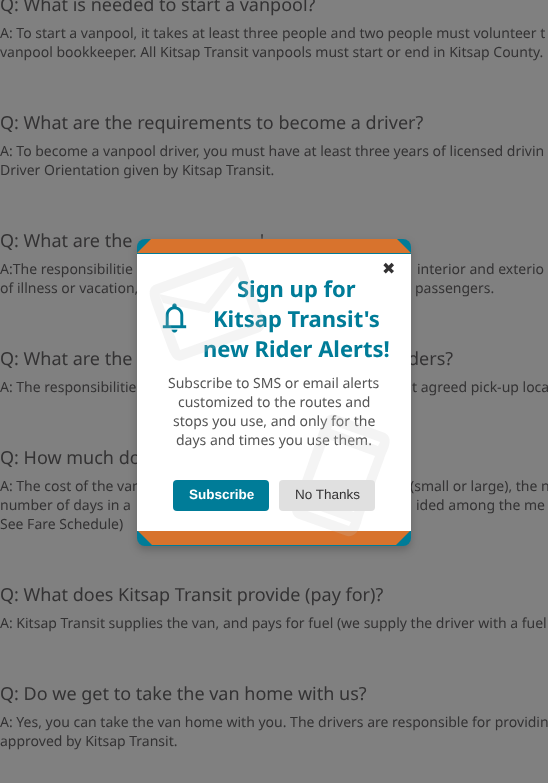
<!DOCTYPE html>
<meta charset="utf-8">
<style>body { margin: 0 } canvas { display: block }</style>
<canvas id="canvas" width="548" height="783"></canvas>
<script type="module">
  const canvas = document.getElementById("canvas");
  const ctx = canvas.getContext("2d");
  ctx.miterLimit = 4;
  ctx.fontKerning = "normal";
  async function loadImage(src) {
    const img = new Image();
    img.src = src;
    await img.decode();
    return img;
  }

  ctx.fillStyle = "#808080";
  ctx.fillRect(0, 0, 548, 783);
  ctx.font = "18px Noto Sans";
  ctx.fillStyle = "#333233";
  ctx.fillText("Q: What is needed to start a vanpool?", 0, 11);
  ctx.font = "14px Noto Sans";
  ctx.fillText("A: To start a vanpool, it takes at least three people and two people must volunteer t", 0, 38);
  ctx.fillText("vanpool bookkeeper. All Kitsap Transit vanpools must start or end in Kitsap County.", 0, 57);
  ctx.font = "18px Noto Sans";
  ctx.fillText("Q: What are the requirements to become a driver?", 0, 129);
  ctx.font = "14px Noto Sans";
  ctx.fillText("A: To become a vanpool driver, you must have at least three years of licensed drivin", 0, 156);
  ctx.fillText("Driver Orientation given by Kitsap Transit.", 0, 175);
  ctx.font = "18px Noto Sans";
  ctx.fillText("Q: What are the", 0, 247);
  ctx.fillText("'", 260, 247);
  ctx.font = "14px Noto Sans";
  ctx.fillText("A:The responsibilitie", 0, 274);
  ctx.fillText("interior and exterio", 417, 274);
  ctx.fillText("of illness or vacation,", 0, 293);
  ctx.fillText("passengers.", 415, 293);
  ctx.font = "18px Noto Sans";
  ctx.fillText("Q: What are the", 0, 365);
  ctx.fillText("ders?", 408, 365);
  ctx.font = "14px Noto Sans";
  ctx.fillText("A: The responsibilitie", 0, 392);
  ctx.fillText("t agreed pick-up loca", 412, 392);
  ctx.font = "18px Noto Sans";
  ctx.fillText("Q: How much do", 0, 464);
  ctx.font = "14px Noto Sans";
  ctx.fillText("A: The cost of the van", 0, 491);
  ctx.fillText("(small or large), the n", 410, 491);
  ctx.fillText("number of days in a", 0, 510);
  ctx.fillText("ided among the me", 416, 510);
  ctx.fillText("See Fare Schedule)", 0, 529);
  ctx.font = "18px Noto Sans";
  ctx.fillText("Q: What does Kitsap Transit provide (pay for)?", 0, 601);
  ctx.font = "14px Noto Sans";
  ctx.fillText("A: Kitsap Transit supplies the van, and pays for fuel (we supply the driver with a fuel", 0, 628);
  ctx.font = "18px Noto Sans";
  ctx.fillText("Q: Do we get to take the van home with us?", 0, 700);
  ctx.font = "14px Noto Sans";
  ctx.fillText("A: Yes, you can take the van home with you. The drivers are responsible for providin", 0, 727);
  ctx.fillText("approved by Kitsap Transit.", 0, 746);
  ctx.fillStyle = "rgba(0, 0, 0, 0.2)";
  ctx.filter = "blur(4px)";
  ctx.beginPath();
  ctx.roundRect(137, 243, 274, 307, 8);
  ctx.fill();
  ctx.filter = "none";
  ctx.fillStyle = "#007c98";
  ctx.beginPath();
  ctx.roundRect(137, 239, 274, 307, 8);
  ctx.fill();
  ctx.fillStyle = "#d8732d";
  ctx.beginPath();
  ctx.moveTo(397, 239);
  ctx.lineTo(151, 239);
  ctx.lineTo(137, 253);
  ctx.lineTo(411, 253);
  ctx.closePath();
  ctx.fill();
  ctx.beginPath();
  ctx.moveTo(411, 530);
  ctx.lineTo(137, 530);
  ctx.lineTo(152, 545);
  ctx.lineTo(396, 545);
  ctx.closePath();
  ctx.fill();
  ctx.fillStyle = "#ffffff";
  ctx.fillRect(137, 254, 274, 277);
  ctx.font = "bold 22px Noto Sans";
  ctx.fillStyle = "#007c98";
  ctx.fillText("Sign up for", 237, 297);
  ctx.drawImage(await loadImage("img1.png"), 162, 303, 25, 30);
  ctx.fillText("Kitsap Transit's", 213, 327);
  ctx.fillText("new Rider Alerts!", 203, 357);
  ctx.fillStyle = "rgba(200, 200, 200, 0.2)";
  ctx.beginPath();
  ctx.moveTo(183, 360);
  ctx.lineTo(260, 332);
  ctx.bezierCurveTo(267, 328, 265, 320, 262, 314);
  ctx.lineTo(247, 273);
  ctx.bezierCurveTo(245, 265, 242, 253, 231, 257);
  ctx.lineTo(154, 285);
  ctx.bezierCurveTo(147, 289, 150, 297, 152, 304);
  ctx.lineTo(168, 348);
  ctx.bezierCurveTo(171, 355, 174, 363, 183, 360);
  ctx.closePath();
  ctx.moveTo(205, 304);
  ctx.lineTo(159, 294);
  ctx.lineTo(234, 267);
  ctx.closePath();
  ctx.moveTo(209, 313);
  ctx.lineTo(163, 303);
  ctx.lineTo(159, 294);
  ctx.lineTo(180, 350);
  ctx.lineTo(255, 323);
  ctx.lineTo(238, 276);
  ctx.closePath();
  ctx.fill("evenodd");
  ctx.font = "16px DejaVu Sans";
  ctx.fillStyle = "#333233";
  ctx.fillText("✖", 382, 274);
  ctx.font = "14px Noto Sans";
  ctx.fillStyle = "#555555";
  ctx.fillText("Subscribe to SMS or email alerts", 168, 388);
  ctx.fillText("customized to the routes and", 178, 407);
  ctx.fillText("stops you use, and only for the", 173, 426);
  ctx.fillText("days and times you use them.", 176, 445);
  ctx.fillStyle = "rgba(200, 200, 200, 0.2)";
  ctx.beginPath();
  ctx.moveTo(299, 519);
  ctx.bezierCurveTo(286, 514, 295, 499, 298, 492);
  ctx.lineTo(318, 435);
  ctx.bezierCurveTo(321, 428, 324, 411, 336, 415);
  ctx.lineTo(385, 433);
  ctx.bezierCurveTo(395, 439, 386, 452, 384, 459);
  ctx.lineTo(363, 516);
  ctx.bezierCurveTo(361, 522, 359, 538, 347, 536);
  ctx.closePath();
  ctx.moveTo(304, 505);
  ctx.lineTo(302, 509);
  ctx.lineTo(349, 526);
  ctx.lineTo(351, 522);
  ctx.closePath();
  ctx.moveTo(307, 495);
  ctx.lineTo(354, 512);
  ctx.lineTo(375, 456);
  ctx.lineTo(328, 439);
  ctx.closePath();
  ctx.moveTo(331, 429);
  ctx.lineTo(378, 446);
  ctx.lineTo(380, 442);
  ctx.lineTo(333, 425);
  ctx.closePath();
  ctx.moveTo(331, 429);
  ctx.lineTo(333, 425);
  ctx.closePath();
  ctx.moveTo(304, 505);
  ctx.lineTo(302, 509);
  ctx.closePath();
  ctx.fill();
  ctx.fillStyle = "#007c98";
  ctx.beginPath();
  ctx.roundRect(173, 480, 96, 31, 4);
  ctx.fill();
  ctx.font = "bold 13.5px Liberation Sans";
  ctx.fillStyle = "#ffffff";
  ctx.fillText("Subscribe", 189, 499);
  ctx.fillStyle = "#e0e0e0";
  ctx.beginPath();
  ctx.roundRect(279, 480, 96, 31, 4);
  ctx.fill();
  ctx.font = "13.5px Liberation Sans";
  ctx.fillStyle = "#333233";
  ctx.fillText("No Thanks", 295, 499);
</script>
